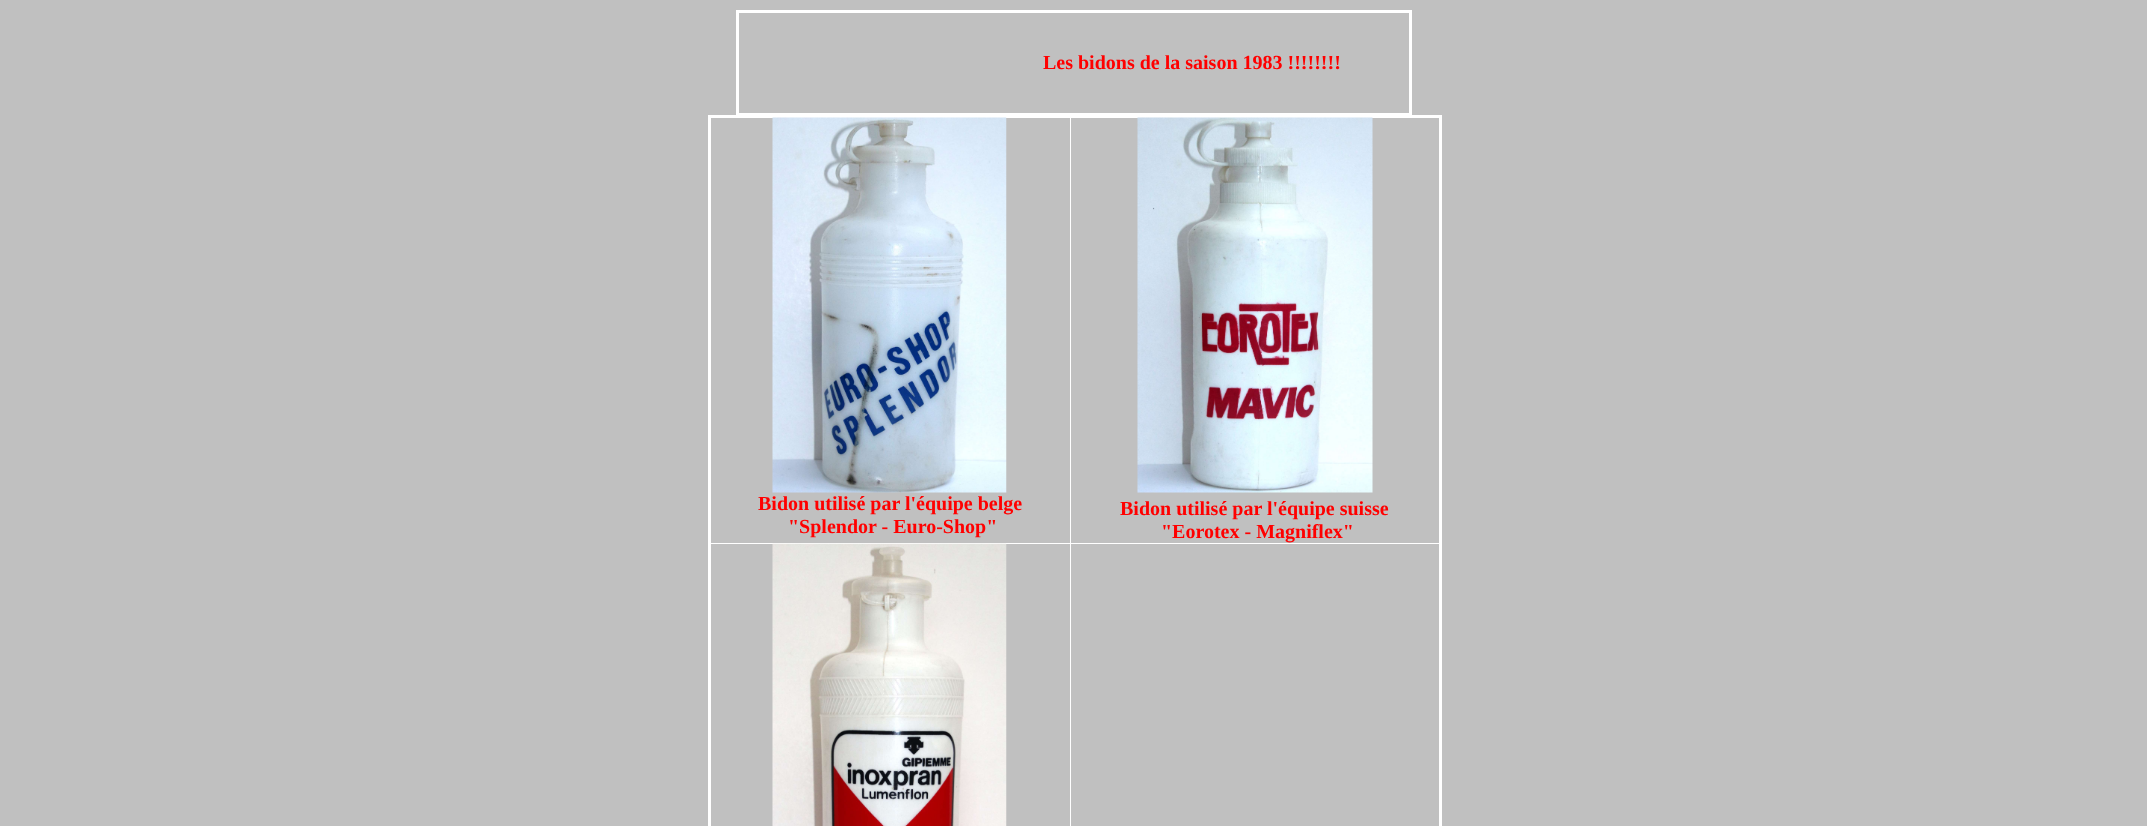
<!DOCTYPE html>
<meta charset="utf-8">
<style>body { margin: 0 } canvas { display: block }</style>
<canvas id="canvas" width="2147" height="826"></canvas>
<script type="module">
  const canvas = document.getElementById("canvas");
  const ctx = canvas.getContext("2d");
  ctx.miterLimit = 4;
  ctx.fontKerning = "normal";
  async function loadImage(src) {
    const img = new Image();
    img.src = src;
    await img.decode();
    return img;
  }

  ctx.fillStyle = "#c0c0c0";
  ctx.fillRect(0, 0, 2147, 826);
  ctx.fillStyle = "#ffffff";
  ctx.fillRect(736, 10, 675, 3);
  ctx.fillRect(1409, 10, 3, 105);
  ctx.fillRect(736, 113, 675, 2);
  ctx.fillRect(736, 10, 3, 105);
  ctx.font = "bold 20px Liberation Serif";
  ctx.fillStyle = "#ff0000";
  ctx.fillText("Les bidons de la saison 1983 !!!!!!!!", 1043, 69);
  ctx.fillStyle = "#ffffff";
  ctx.fillRect(1070, 543, 370, 1);
  ctx.fillRect(1070, 543, 1, 283);
  ctx.fillRect(708, 543, 363, 1);
  ctx.fillRect(1070, 116, 1, 428);
  ctx.fillRect(708, 115, 733, 3);
  ctx.fillRect(1439, 115, 3, 711);
  ctx.fillRect(708, 115, 3, 711);
  ctx.drawImage(await loadImage("img1.png"), 772, 117, 235, 376);
  ctx.fillStyle = "#ff0000";
  ctx.fillText("Bidon utilisé par l'équipe belge", 758, 510);
  ctx.fillText("\"Splendor - Euro-Shop\"", 788, 533);
  ctx.drawImage(await loadImage("img2.png"), 1137, 117, 236, 376);
  ctx.fillText("Bidon utilisé par l'équipe suisse", 1120, 515);
  ctx.fillText("\"Eorotex - Magniflex\"", 1161, 538);
  ctx.drawImage(await loadImage("img3.png"), 772, 543, 235, 283);
</script>
